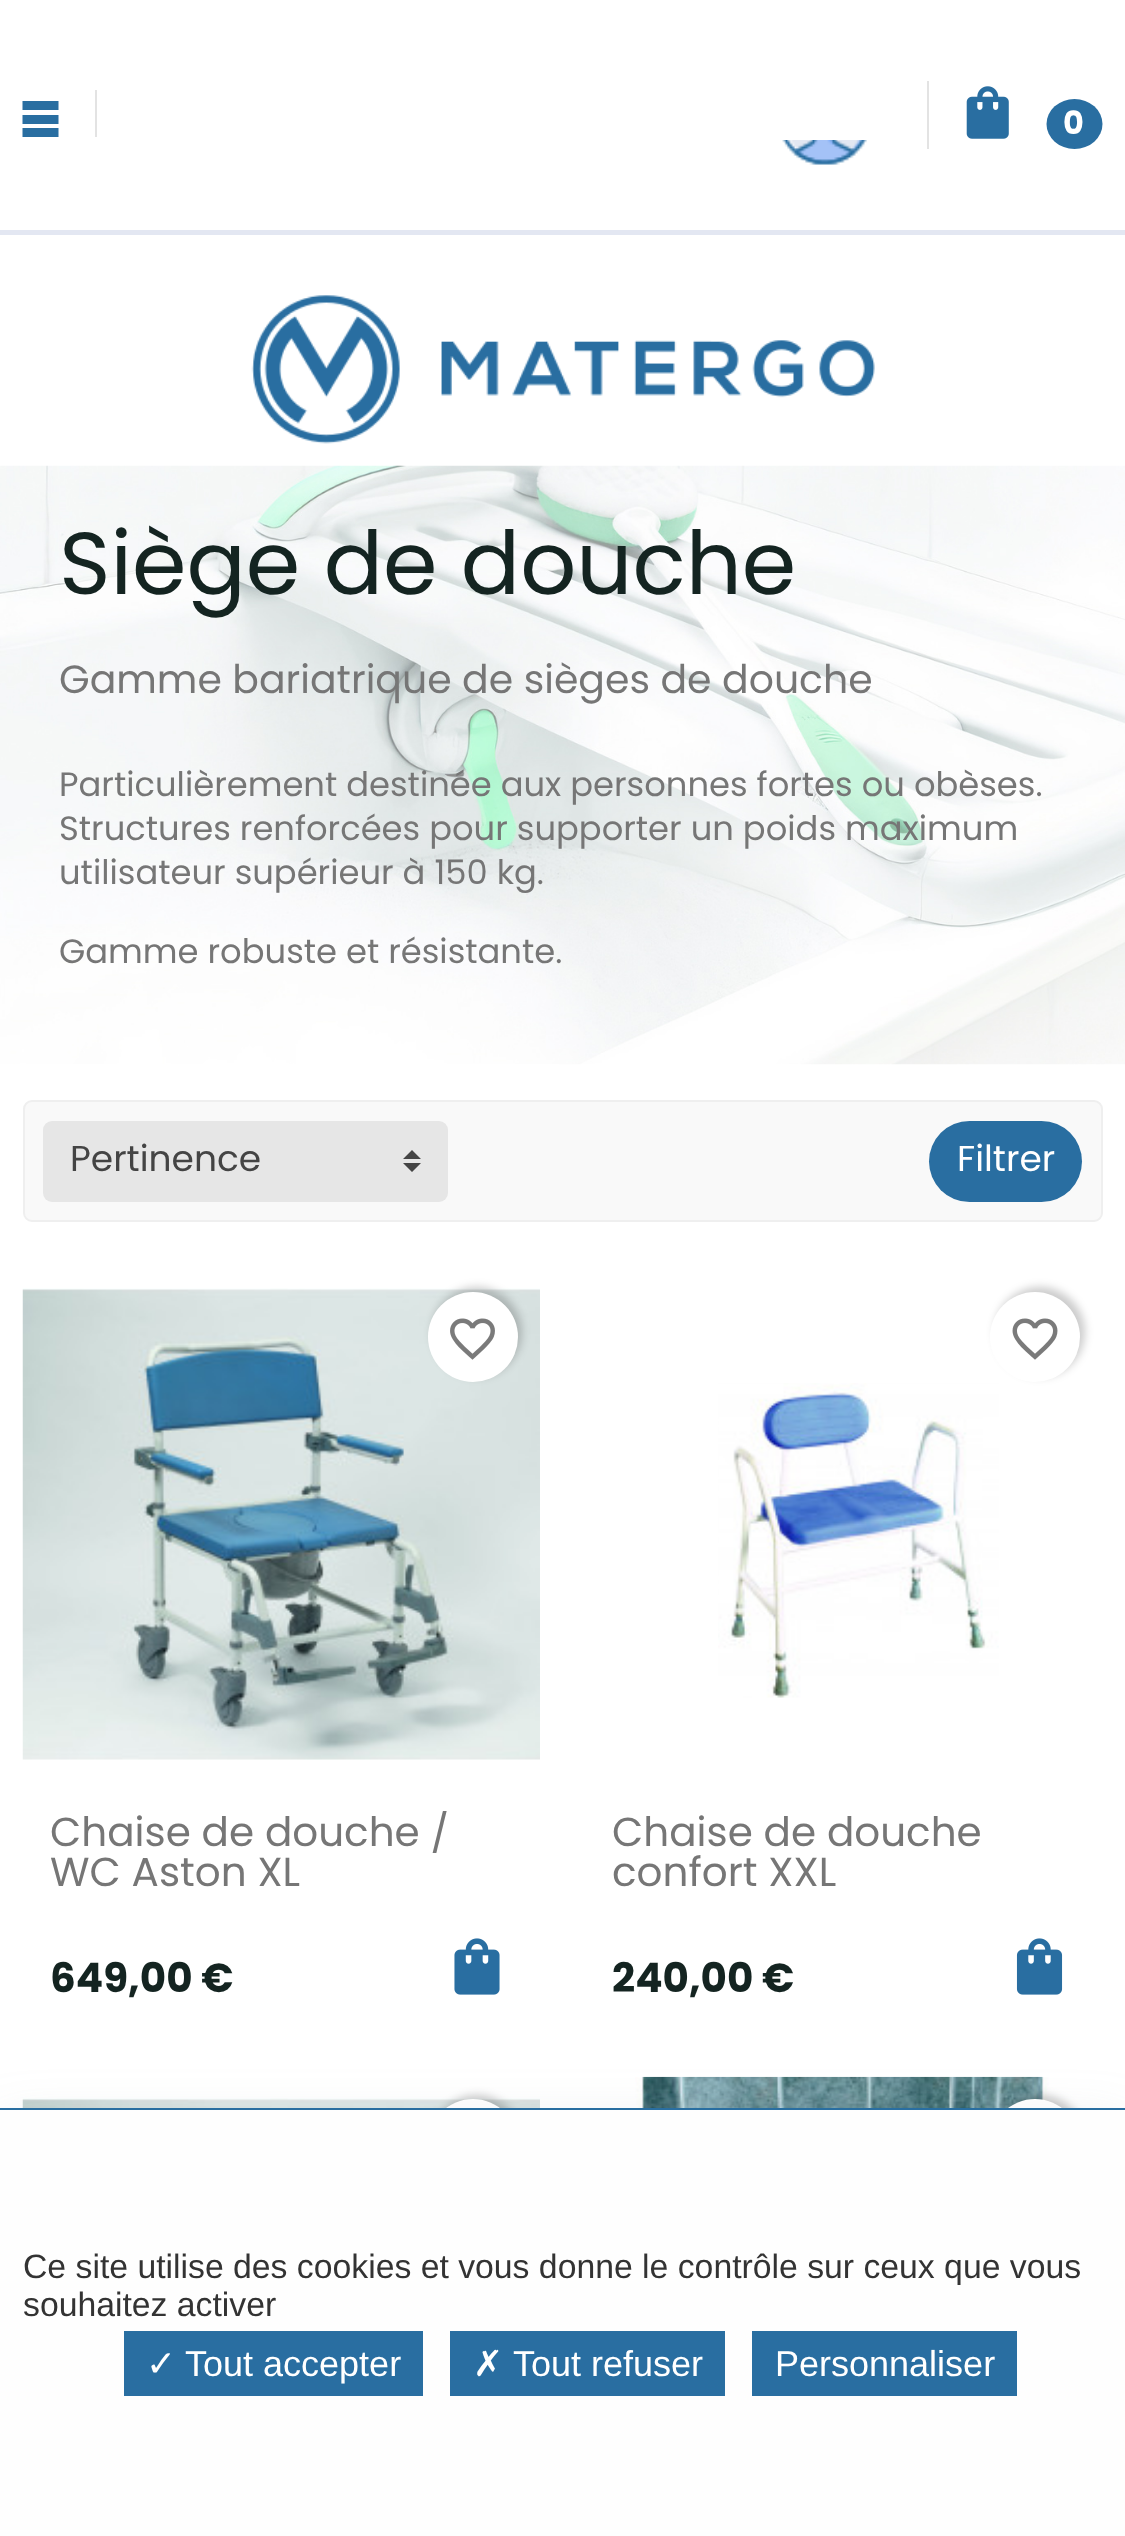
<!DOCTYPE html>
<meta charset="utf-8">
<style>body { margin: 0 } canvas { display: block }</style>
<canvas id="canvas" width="1125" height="2536"></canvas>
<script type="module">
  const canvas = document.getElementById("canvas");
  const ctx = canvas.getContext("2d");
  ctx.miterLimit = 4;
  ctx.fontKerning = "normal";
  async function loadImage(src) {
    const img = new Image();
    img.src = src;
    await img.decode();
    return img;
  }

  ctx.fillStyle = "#ffffff";
  ctx.fillRect(0, 0, 1125, 2536);
  ctx.fillStyle = "#e3e7f2";
  ctx.fillRect(0, 230, 1125, 5);
  ctx.fillStyle = "#e3e3e3";
  ctx.fillRect(95, 90, 2, 47);
  ctx.fillStyle = "#296ea1";
  ctx.beginPath();
  ctx.moveTo(22.5, 101);
  ctx.lineTo(22.5, 110);
  ctx.lineTo(58.5, 110);
  ctx.lineTo(58.5, 101);
  ctx.closePath();
  ctx.moveTo(22.5, 124);
  ctx.lineTo(58.5, 124);
  ctx.lineTo(58.5, 115);
  ctx.lineTo(22.5, 115);
  ctx.closePath();
  ctx.moveTo(22.5, 137);
  ctx.lineTo(58.5, 137);
  ctx.lineTo(58.5, 128);
  ctx.lineTo(22.5, 128);
  ctx.closePath();
  ctx.fill();
  ctx.fillStyle = "#e3e3e3";
  ctx.fillRect(927, 81, 2, 68);
  ctx.drawImage(await loadImage("img1.png"), 966, 86, 43, 53);
  ctx.fillStyle = "#296ea1";
  ctx.beginPath();
  ctx.ellipse(1074.5, 124, 28, 25, 0, 0, Math.PI * 2);
  ctx.fill();
  ctx.font = "bold 32px Poppins";
  ctx.fillStyle = "#ffffff";
  ctx.fillText("0", 1063, 134);
  ctx.drawImage(await loadImage("img2.png"), 782, 140, 85, 25);
  ctx.drawImage(await loadImage("img3.png"), 251, 295, 624, 149);
  ctx.drawImage(await loadImage("img4.png"), 0, 465, 1125, 600);
  ctx.font = "87.75px Poppins";
  ctx.fillStyle = "#142421";
  ctx.fillText("Siège de douche", 59, 594);
  ctx.font = "39.4px Poppins";
  ctx.fillStyle = "#767676";
  ctx.fillText("Gamme bariatrique de sièges de douche", 59, 693);
  ctx.font = "33.75px Poppins";
  ctx.fillText("Particulièrement destinée aux personnes fortes ou obèses.", 59, 796);
  ctx.fillText("Structures renforcées pour supporter un poids maximum", 59, 840);
  ctx.fillText("utilisateur supérieur à 150 kg.", 59, 884);
  ctx.fillText("Gamme robuste et résistante.", 59, 963);
  ctx.fillStyle = "#f9f9f9";
  ctx.beginPath();
  ctx.roundRect(24, 1101, 1078, 120, 8);
  ctx.fill();
  ctx.strokeStyle = "#efefef";
  ctx.lineWidth = 2;
  ctx.stroke();
  ctx.fillStyle = "#e6e6e6";
  ctx.beginPath();
  ctx.roundRect(43, 1121, 405, 81, 9);
  ctx.fill();
  ctx.fillStyle = "#444444";
  ctx.beginPath();
  ctx.moveTo(412, 1150);
  ctx.lineTo(403, 1159);
  ctx.lineTo(421, 1159);
  ctx.closePath();
  ctx.moveTo(412, 1172);
  ctx.lineTo(403, 1163);
  ctx.lineTo(421, 1163);
  ctx.closePath();
  ctx.fill();
  ctx.font = "36px Poppins";
  ctx.fillText("Pertinence", 70, 1171);
  ctx.fillStyle = "#296ea1";
  ctx.beginPath();
  ctx.roundRect(929, 1121, 153, 81, 40.5);
  ctx.fill();
  ctx.fillStyle = "#ffffff";
  ctx.fillText("Filtrer", 957, 1171);
  ctx.drawImage(await loadImage("img6.png"), 22, 1288, 518, 472);
  ctx.fillStyle = "rgba(0, 0, 0, 0.2)";
  ctx.filter = "blur(4.5px)";
  ctx.beginPath();
  ctx.roundRect(432, 1287, 90, 90, 45);
  ctx.fill();
  ctx.filter = "none";
  ctx.fillStyle = "#ffffff";
  ctx.beginPath();
  ctx.arc(473, 1337, 45, 0, Math.PI * 2);
  ctx.fill();
  ctx.drawImage(await loadImage("img5.png"), 450, 1318, 45, 42);
  ctx.save();
  ctx.beginPath();
  ctx.rect(50, 1811, 463, 86);
  ctx.clip();
  ctx.font = "40.5px Poppins";
  ctx.fillStyle = "#767676";
  ctx.fillText("Chaise de douche /", 50, 1846);
  ctx.restore();
  ctx.font = "40.5px Poppins";
  ctx.fillStyle = "#767676";
  ctx.fillText("WC Aston XL", 50, 1886);
  ctx.font = "bold 40.5px Poppins";
  ctx.fillStyle = "#142421";
  ctx.fillText("649,00 €", 50, 1992);
  ctx.drawImage(await loadImage("img7.png"), 454, 1938, 46, 57);
  ctx.drawImage(await loadImage("img9.png"), 718, 1383, 281, 315);
  ctx.fillStyle = "rgba(0, 0, 0, 0.2)";
  ctx.filter = "blur(4.5px)";
  ctx.beginPath();
  ctx.roundRect(995, 1287, 90, 90, 45);
  ctx.fill();
  ctx.filter = "none";
  ctx.fillStyle = "#ffffff";
  ctx.beginPath();
  ctx.arc(1035, 1337, 45, 0, Math.PI * 2);
  ctx.fill();
  ctx.drawImage(await loadImage("img8.png"), 1012, 1318, 46, 42);
  ctx.font = "40.5px Poppins";
  ctx.fillStyle = "#767676";
  ctx.fillText("Chaise de douche", 612, 1846);
  ctx.fillText("confort XXL", 612, 1886);
  ctx.font = "bold 40.5px Poppins";
  ctx.fillStyle = "#142421";
  ctx.fillText("240,00 €", 612, 1992);
  ctx.drawImage(await loadImage("img10.png"), 1016, 1938, 47, 57);
  ctx.drawImage(await loadImage("img11.png"), 22, 2098, 518, 10);
  ctx.fillStyle = "rgba(0, 0, 0, 0.2)";
  ctx.filter = "blur(4.5px)";
  ctx.beginPath();
  ctx.roundRect(432, 2095, 90, 90, 45);
  ctx.fill();
  ctx.filter = "none";
  ctx.fillStyle = "#ffffff";
  ctx.beginPath();
  ctx.arc(473, 2144, 45, 0, Math.PI * 2);
  ctx.fill();
  ctx.drawImage(await loadImage("img12.png"), 635, 2076, 414, 32);
  ctx.fillStyle = "rgba(0, 0, 0, 0.2)";
  ctx.filter = "blur(4.5px)";
  ctx.beginPath();
  ctx.roundRect(995, 2095, 90, 90, 45);
  ctx.fill();
  ctx.filter = "none";
  ctx.fillStyle = "#ffffff";
  ctx.beginPath();
  ctx.arc(1035, 2144, 45, 0, Math.PI * 2);
  ctx.fill();
  ctx.fillStyle = "rgba(149, 157, 165, 0.2)";
  ctx.filter = "blur(27px)";
  ctx.beginPath();
  ctx.rect(0, 2126, 1125, 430);
  ctx.fill();
  ctx.filter = "none";
  ctx.fillStyle = "#fefefe";
  ctx.fillRect(0, 2110, 1125, 426);
  ctx.fillStyle = "#296ea1";
  ctx.fillRect(0, 2108, 1125, 2);
  ctx.font = "33.75px Liberation Sans";
  ctx.fillStyle = "#333333";
  ctx.fillText("Ce site utilise des cookies et vous donne le contrôle sur ceux que vous", 23, 2278);
  ctx.fillText("souhaitez activer", 23, 2316);
  ctx.fillStyle = "#296ea1";
  ctx.fillRect(124, 2331, 299, 65);
  ctx.font = "36px DejaVu Sans";
  ctx.fillStyle = "#ffffff";
  ctx.fillText("✓", 146, 2376);
  ctx.font = "36px Liberation Sans";
  ctx.fillText("Tout accepter", 185, 2376);
  ctx.fillStyle = "#296ea1";
  ctx.fillRect(450, 2331, 275, 65);
  ctx.font = "36px DejaVu Sans";
  ctx.fillStyle = "#ffffff";
  ctx.fillText("✗", 473, 2376);
  ctx.font = "36px Liberation Sans";
  ctx.fillText("Tout refuser", 513, 2376);
  ctx.fillStyle = "#296ea1";
  ctx.fillRect(752, 2331, 265, 65);
  ctx.fillStyle = "#ffffff";
  ctx.fillText("Personnaliser", 775, 2376);
</script>
